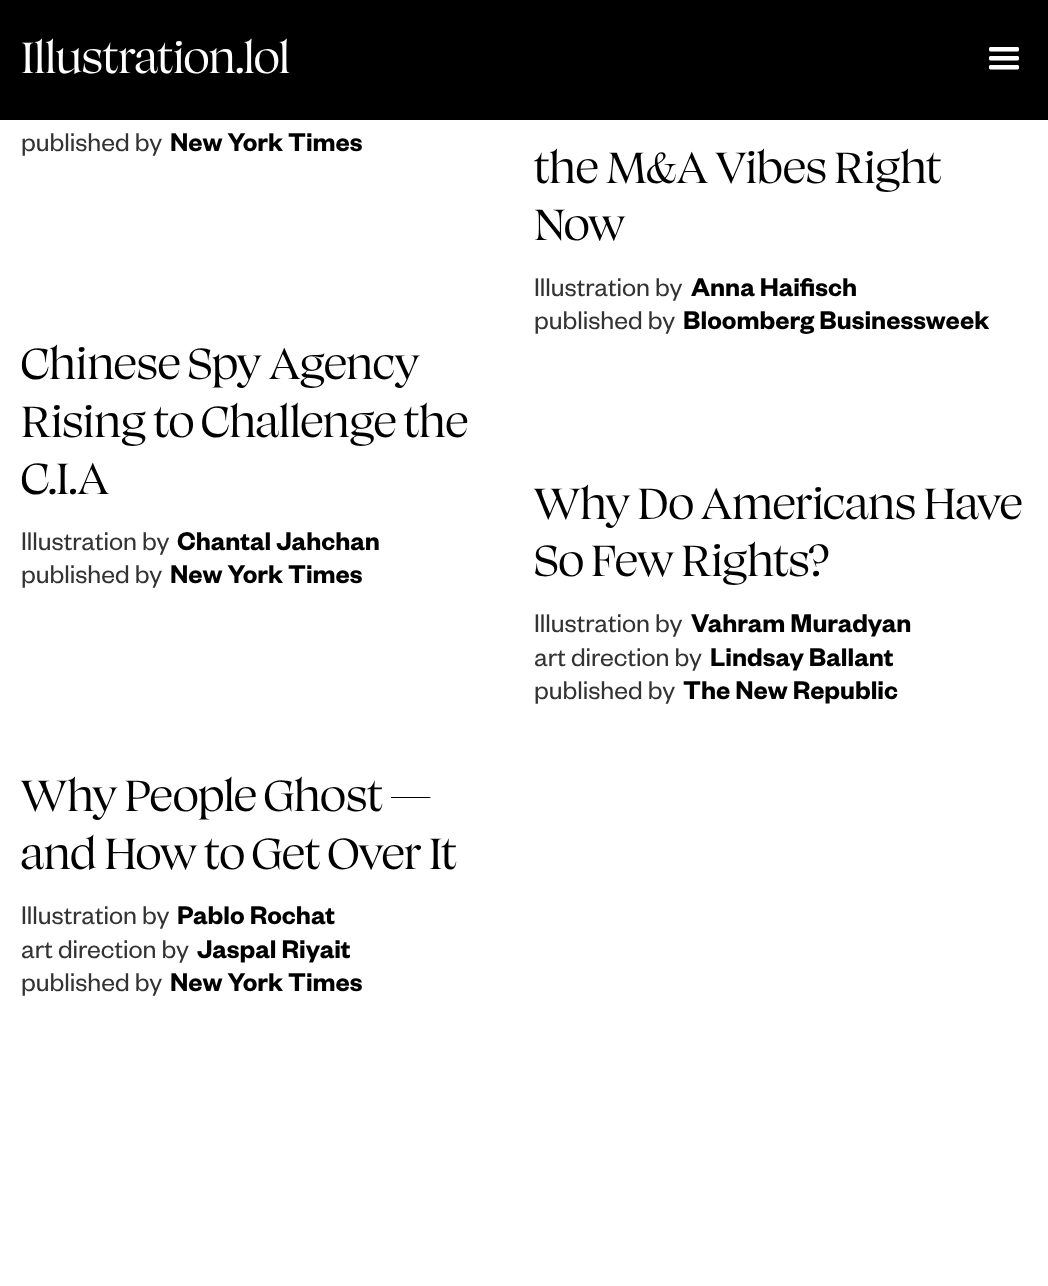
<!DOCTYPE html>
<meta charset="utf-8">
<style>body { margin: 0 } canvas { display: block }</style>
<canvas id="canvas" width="1048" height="1286"></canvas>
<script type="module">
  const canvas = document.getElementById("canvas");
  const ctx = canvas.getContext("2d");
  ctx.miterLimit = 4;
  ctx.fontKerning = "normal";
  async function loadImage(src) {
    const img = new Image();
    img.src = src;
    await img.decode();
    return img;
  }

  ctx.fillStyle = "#ffffff";
  ctx.fillRect(0, 0, 1048, 1286);
  ctx.fillStyle = "#000000";
  ctx.fillRect(0, 0, 1048, 120);
  ctx.font = "300 48px 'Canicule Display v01'";
  ctx.fillStyle = "#ffffff";
  ctx.fillText("Illustration.lol", 21, 73);
  ctx.drawImage(await loadImage("img1.png"), 989, 47, 30, 23);
  ctx.font = "28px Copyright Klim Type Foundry";
  ctx.fillStyle = "#333333";
  ctx.fillText("published by", 21, 151);
  ctx.font = "600 28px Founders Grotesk";
  ctx.fillStyle = "#000000";
  ctx.fillText("New York Times", 170, 151);
  ctx.font = "300 48px 'Canicule Display v01'";
  ctx.fillText("the M&A Vibes Right", 534, 183);
  ctx.fillText("Now", 534, 240);
  ctx.font = "28px Copyright Klim Type Foundry";
  ctx.fillStyle = "#333333";
  ctx.fillText("Illustration by", 534, 296);
  ctx.font = "600 28px Founders Grotesk";
  ctx.fillStyle = "#000000";
  ctx.fillText("Anna Haifisch", 691, 296);
  ctx.font = "28px Copyright Klim Type Foundry";
  ctx.fillStyle = "#333333";
  ctx.fillText("published by", 534, 329);
  ctx.font = "600 28px Founders Grotesk";
  ctx.fillStyle = "#000000";
  ctx.fillText("Bloomberg Businessweek", 683, 329);
  ctx.font = "300 48px 'Canicule Display v01'";
  ctx.fillText("Chinese Spy Agency", 21, 379);
  ctx.fillText("Rising to Challenge the", 21, 437);
  ctx.fillText("C.I.A", 21, 494);
  ctx.font = "28px Copyright Klim Type Foundry";
  ctx.fillStyle = "#333333";
  ctx.fillText("Illustration by", 21, 550);
  ctx.font = "600 28px Founders Grotesk";
  ctx.fillStyle = "#000000";
  ctx.fillText("Chantal Jahchan", 177, 550);
  ctx.font = "28px Copyright Klim Type Foundry";
  ctx.fillStyle = "#333333";
  ctx.fillText("published by", 21, 583);
  ctx.font = "600 28px Founders Grotesk";
  ctx.fillStyle = "#000000";
  ctx.fillText("New York Times", 170, 583);
  ctx.font = "300 48px 'Canicule Display v01'";
  ctx.fillText("Why Do Americans Have", 534, 519);
  ctx.fillText("So Few Rights?", 534, 576);
  ctx.font = "28px Copyright Klim Type Foundry";
  ctx.fillStyle = "#333333";
  ctx.fillText("Illustration by", 534, 632);
  ctx.font = "600 28px Founders Grotesk";
  ctx.fillStyle = "#000000";
  ctx.fillText("Vahram Muradyan", 691, 632);
  ctx.font = "28px Copyright Klim Type Foundry";
  ctx.fillStyle = "#333333";
  ctx.fillText("art direction by", 534, 666);
  ctx.font = "600 28px Founders Grotesk";
  ctx.fillStyle = "#000000";
  ctx.fillText("Lindsay Ballant", 710, 666);
  ctx.font = "28px Copyright Klim Type Foundry";
  ctx.fillStyle = "#333333";
  ctx.fillText("published by", 534, 699);
  ctx.font = "600 28px Founders Grotesk";
  ctx.fillStyle = "#000000";
  ctx.fillText("The New Republic", 683, 699);
  ctx.font = "300 48px 'Canicule Display v01'";
  ctx.fillText("Why People Ghost —", 21, 811);
  ctx.fillText("and How to Get Over It", 21, 869);
  ctx.font = "28px Copyright Klim Type Foundry";
  ctx.fillStyle = "#333333";
  ctx.fillText("Illustration by", 21, 924);
  ctx.font = "600 28px Founders Grotesk";
  ctx.fillStyle = "#000000";
  ctx.fillText("Pablo Rochat", 177, 924);
  ctx.font = "28px Copyright Klim Type Foundry";
  ctx.fillStyle = "#333333";
  ctx.fillText("art direction by", 21, 958);
  ctx.font = "600 28px Founders Grotesk";
  ctx.fillStyle = "#000000";
  ctx.fillText("Jaspal Riyait", 197, 958);
  ctx.font = "28px Copyright Klim Type Foundry";
  ctx.fillStyle = "#333333";
  ctx.fillText("published by", 21, 991);
  ctx.font = "600 28px Founders Grotesk";
  ctx.fillStyle = "#000000";
  ctx.fillText("New York Times", 170, 991);
</script>
